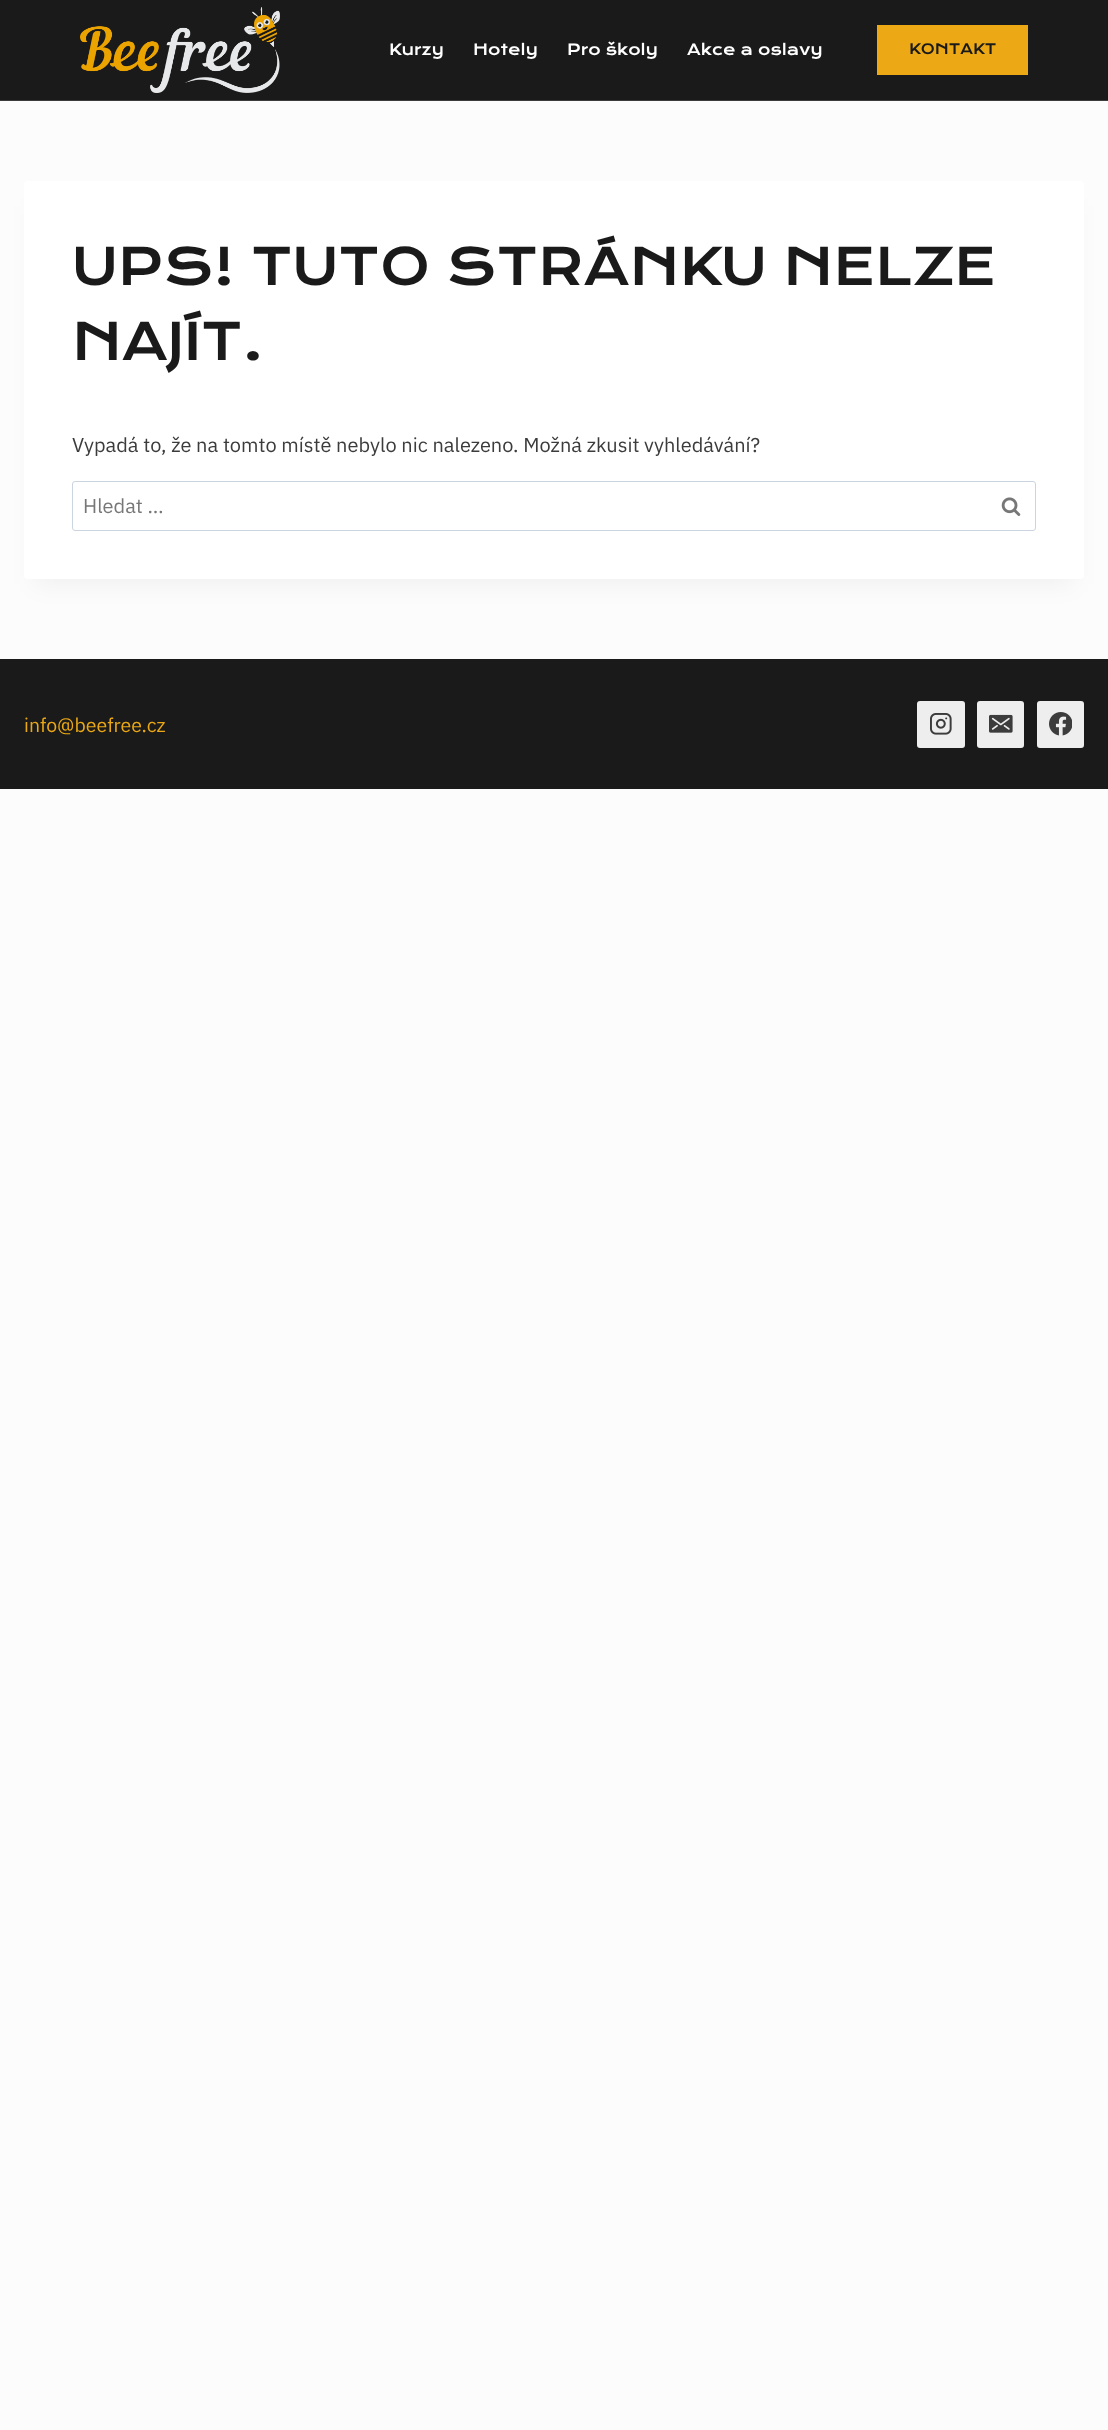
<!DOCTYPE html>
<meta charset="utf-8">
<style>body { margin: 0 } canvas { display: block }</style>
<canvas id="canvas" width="1108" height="2430"></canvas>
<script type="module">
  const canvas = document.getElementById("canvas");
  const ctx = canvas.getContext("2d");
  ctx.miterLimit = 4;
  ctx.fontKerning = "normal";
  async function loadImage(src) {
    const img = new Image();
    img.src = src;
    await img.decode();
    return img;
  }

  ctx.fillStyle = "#fcfcfc";
  ctx.fillRect(0, 0, 1108, 2430);
  ctx.fillStyle = "#1a1a1a";
  ctx.fillRect(0, 0, 1108, 100);
  ctx.fillStyle = "#3c3c3c";
  ctx.fillRect(0, 100, 1108, 1);
  ctx.drawImage(await loadImage("img1.png"), 80, 7, 200, 86);
  ctx.font = "15px Krona One";
  ctx.fillStyle = "#ffffff";
  ctx.fillText("Kurzy", 389, 55);
  ctx.fillText("Hotely", 473, 55);
  ctx.fillText("Pro školy", 567, 55);
  ctx.fillText("Akce a oslavy", 687, 55);
  ctx.fillStyle = "#eca815";
  ctx.fillRect(877, 25, 151, 50);
  ctx.font = "14px Krona One";
  ctx.fillStyle = "#1a1a1a";
  ctx.fillText("KONTAKT", 909, 54);
  ctx.fillStyle = "rgba(0, 0, 0, 0.05)";
  ctx.filter = "blur(12.5px)";
  ctx.beginPath();
  ctx.rect(34, 206, 1040, 378);
  ctx.fill();
  ctx.filter = "none";
  ctx.fillStyle = "#ffffff";
  ctx.beginPath();
  ctx.roundRect(24, 181, 1060, 398, 4);
  ctx.fill();
  ctx.font = "50px Krona One";
  ctx.fillStyle = "#1a1a1a";
  ctx.fillText("UPS! TUTO STRÁNKU NELZE", 72, 285);
  ctx.fillText("NAJÍT.", 72, 360);
  ctx.font = "20px IBM Plex Sans";
  ctx.fillStyle = "#3c3c3c";
  ctx.fillText("Vypadá to, že na tomto místě nebylo nic nalezeno. Možná zkusit vyhledávání?", 72, 452);
  ctx.beginPath();
  ctx.roundRect(72.5, 481.5, 963, 49, 2.5);
  ctx.strokeStyle = "#cbd5e0";
  ctx.stroke();
  ctx.fillStyle = "#777777";
  ctx.fillText("Hledat …", 83, 513);
  ctx.drawImage(await loadImage("img2.png"), 1001, 497, 20, 19);
  ctx.fillStyle = "#1a1a1a";
  ctx.fillRect(0, 659, 1108, 130);
  ctx.font = "19.5px IBM Plex Sans";
  ctx.fillStyle = "#eba815";
  ctx.fillText("info@beefree.cz", 24, 732);
  ctx.fillStyle = "#eeeeee";
  ctx.beginPath();
  ctx.roundRect(917, 701, 48, 47, 3);
  ctx.fill();
  ctx.drawImage(await loadImage("img3.png"), 930, 713, 22, 22);
  ctx.beginPath();
  ctx.roundRect(977, 701, 47, 47, 3);
  ctx.fill();
  ctx.drawImage(await loadImage("img4.png"), 989, 714, 24, 19);
  ctx.beginPath();
  ctx.roundRect(1037, 701, 47, 47, 3);
  ctx.fill();
  ctx.drawImage(await loadImage("img5.png"), 1049, 712, 23, 24);
</script>
